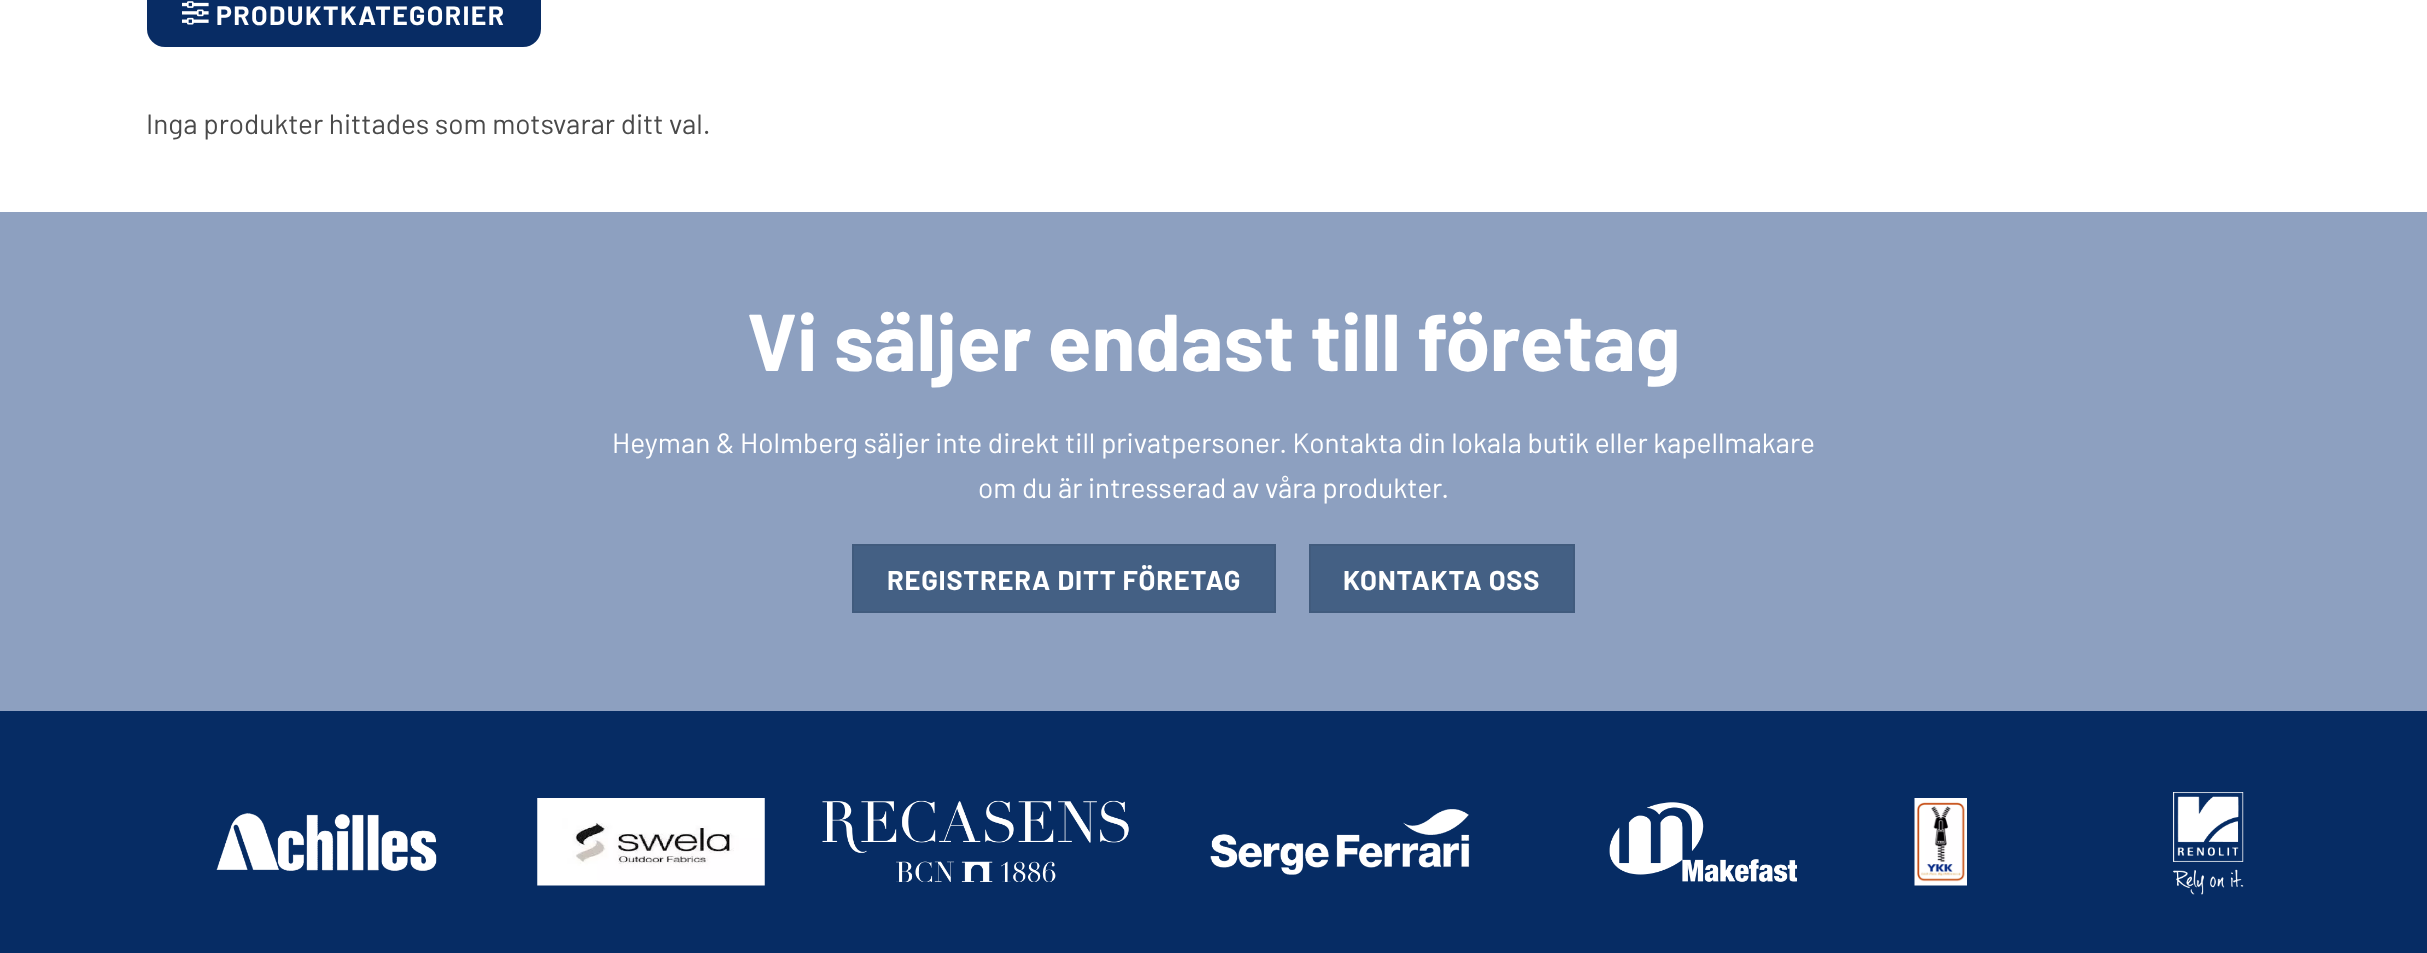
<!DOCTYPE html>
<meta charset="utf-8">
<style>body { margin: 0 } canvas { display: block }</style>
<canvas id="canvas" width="2427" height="953"></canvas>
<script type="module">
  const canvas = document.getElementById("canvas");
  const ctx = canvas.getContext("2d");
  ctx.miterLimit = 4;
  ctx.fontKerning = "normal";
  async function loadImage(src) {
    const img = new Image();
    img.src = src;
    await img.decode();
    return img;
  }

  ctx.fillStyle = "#ffffff";
  ctx.fillRect(0, 0, 2427, 953);
  ctx.fillStyle = "#082c64";
  ctx.beginPath();
  ctx.roundRect(147, -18, 394, 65, 18);
  ctx.fill();
  ctx.drawImage(await loadImage("img1.png"), 182, 1, 27, 24);
  ctx.letterSpacing = "1.4px";
  ctx.font = "bold 26.6px Barlow";
  ctx.fillStyle = "#ffffff";
  ctx.fillText("PRODUKTKATEGORIER", 216, 25);
  ctx.letterSpacing = "0px";
  ctx.font = "28px Barlow";
  ctx.fillStyle = "#4a4a4a";
  ctx.fillText("Inga produkter hittades som motsvarar ditt val.", 146, 134);
  ctx.fillStyle = "#8da0c0";
  ctx.fillRect(0, 212, 2427, 499);
  ctx.font = "bold 80.5px Barlow";
  ctx.fillStyle = "#ffffff";
  ctx.fillText("Vi säljer endast till företag", 747, 371);
  ctx.font = "28px Barlow";
  ctx.fillText("Heyman & Holmberg säljer inte direkt till privatpersoner. Kontakta din lokala butik eller kapellmakare", 612, 453);
  ctx.fillText("om du är intresserad av våra produkter.", 978, 498);
  ctx.fillStyle = "#446084";
  ctx.beginPath();
  ctx.rect(853, 545, 422, 67);
  ctx.fill();
  ctx.strokeStyle = "#415b7d";
  ctx.lineWidth = 2;
  ctx.stroke();
  ctx.letterSpacing = "0.8px";
  ctx.font = "bold 27.2px Barlow";
  ctx.fillStyle = "#ffffff";
  ctx.fillText("REGISTRERA DITT FÖRETAG", 887, 590);
  ctx.fillStyle = "#446084";
  ctx.beginPath();
  ctx.rect(1310, 545, 264, 67);
  ctx.fill();
  ctx.stroke();
  ctx.fillStyle = "#ffffff";
  ctx.fillText("KONTAKTA OSS", 1343, 590);
  ctx.fillStyle = "#062c64";
  ctx.fillRect(0, 711, 2427, 242);
  ctx.drawImage(await loadImage("img2.png"), 216, 813, 221, 58);
  ctx.drawImage(await loadImage("img3.png"), 537, 798, 228, 88);
  ctx.drawImage(await loadImage("img4.png"), 822, 800, 307, 82);
  ctx.drawImage(await loadImage("img5.png"), 1210, 809, 260, 66);
  ctx.drawImage(await loadImage("img6.png"), 1609, 802, 188, 80);
  ctx.drawImage(await loadImage("img7.png"), 1914, 798, 53, 88);
  ctx.drawImage(await loadImage("img8.png"), 2173, 792, 71, 103);
</script>
